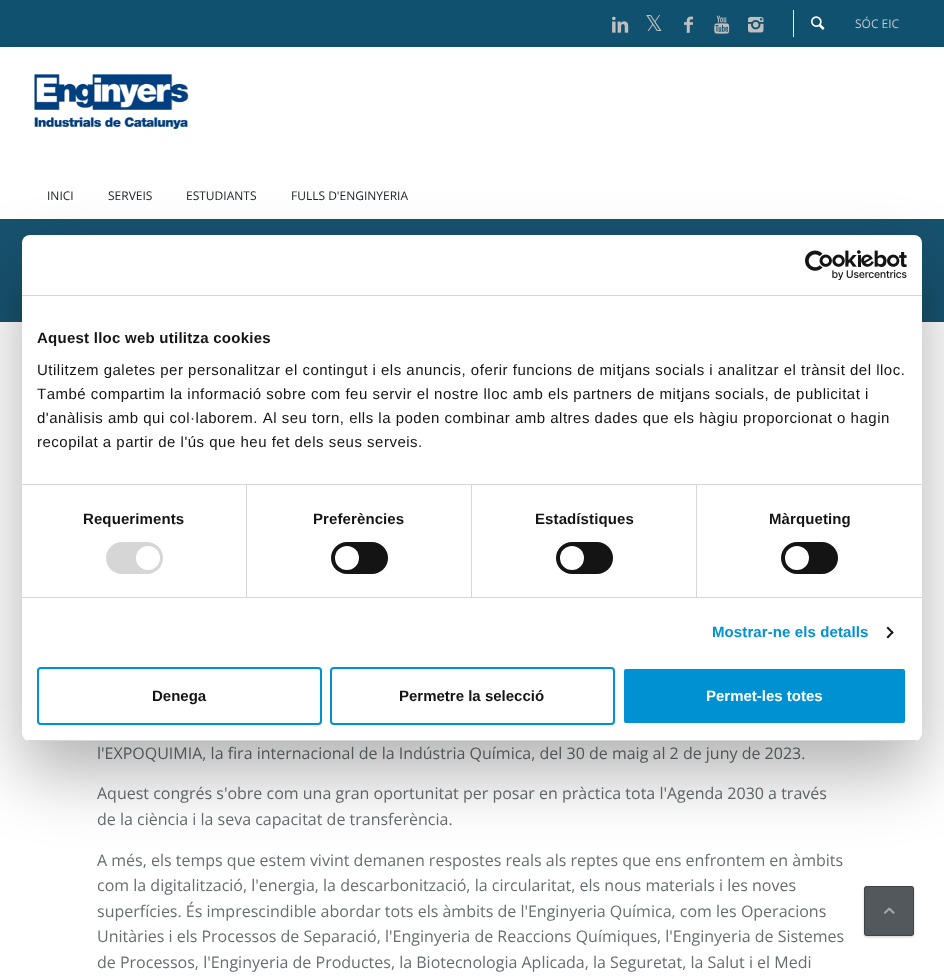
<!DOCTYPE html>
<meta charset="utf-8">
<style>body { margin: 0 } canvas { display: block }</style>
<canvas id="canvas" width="944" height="976"></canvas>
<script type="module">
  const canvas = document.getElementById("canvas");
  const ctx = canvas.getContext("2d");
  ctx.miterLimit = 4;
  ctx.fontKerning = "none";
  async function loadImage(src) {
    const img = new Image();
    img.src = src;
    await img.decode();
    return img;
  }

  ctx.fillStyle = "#ffffff";
  ctx.fillRect(0, 0, 944, 976);
  ctx.fillStyle = "#10516f";
  ctx.fillRect(0, 0, 944, 47);
  ctx.drawImage(await loadImage("img1.png"), 612, 16, 17, 17);
  ctx.font = "22px DejaVu Sans";
  ctx.fillStyle = "#bfbfbf";
  ctx.fillText("𝕏", 645, 31);
  ctx.drawImage(await loadImage("img2.png"), 684, 16, 9, 17);
  ctx.drawImage(await loadImage("img3.png"), 714, 15, 16, 19);
  ctx.drawImage(await loadImage("img4.png"), 748, 16, 16, 17);
  ctx.fillStyle = "#efefef";
  ctx.fillRect(793, 10, 1, 27);
  ctx.drawImage(await loadImage("img5.png"), 811, 16, 14, 14);
  ctx.font = "12px Open Sans";
  ctx.fillStyle = "#bfc8cd";
  ctx.fillText("SÓC EIC", 855, 28);
  ctx.save();
  ctx.beginPath();
  ctx.rect(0, 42, 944, 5);
  ctx.clip();
  ctx.fillStyle = "rgba(0, 0, 0, 0.1)";
  ctx.filter = "blur(7.5px)";
  ctx.beginPath();
  ctx.rect(0, 48, 944, 125);
  ctx.fill();
  ctx.filter = "none";
  ctx.restore();
  ctx.drawImage(await loadImage("img6.png"), 34, 74, 155, 55);
  ctx.fillStyle = "#ffffff";
  ctx.fillRect(0, 172, 944, 11);
  ctx.fillStyle = "#21252b";
  ctx.fillText("INICI", 47, 200);
  ctx.fillText("SERVEIS", 108, 200);
  ctx.fillText("ESTUDIANTS", 186, 200);
  ctx.fillText("FULLS D'ENGINYERIA", 291, 200);
  ctx.fillStyle = "#17526e";
  ctx.fillRect(0, 219, 944, 103);
  ctx.font = "16px Open Sans";
  ctx.fillStyle = "#666e70";
  ctx.fillText("l'EXPOQUIMIA, la fira internacional de la Indústria Química, del 30 de maig al 2 de juny de 2023.", 97, 759);
  ctx.fillText("Aquest congrés s'obre com una gran oportunitat per posar en pràctica tota l'Agenda 2030 a través", 97, 799);
  ctx.fillText("de la ciència i la seva capacitat de transferència.", 97, 825);
  ctx.fillText("A més, els temps que estem vivint demanen respostes reals als reptes que ens enfrontem en àmbits", 97, 866);
  ctx.fillText("com la digitalització, l'energia, la descarbonització, la circularitat, els nous materials i les noves", 97, 891);
  ctx.fillText("superfícies. És imprescindible abordar tots els àmbits de l'Enginyeria Química, com les Operacions", 97, 917);
  ctx.fillText("Unitàries i els Processos de Separació, l'Enginyeria de Reaccions Químiques, l'Enginyeria de Sistemes", 97, 942);
  ctx.fillText("de Processos, l'Enginyeria de Productes, la Biotecnologia Aplicada, la Seguretat, la Salut i el Medi", 97, 968);
  ctx.fillStyle = "rgba(0, 0, 0, 0.3)";
  ctx.filter = "blur(34px)";
  ctx.beginPath();
  ctx.roundRect(22, 267, 900, 506, 8);
  ctx.fill();
  ctx.filter = "none";
  ctx.fillStyle = "#ffffff";
  ctx.beginPath();
  ctx.roundRect(22, 235, 900, 506, 8);
  ctx.fill();
  ctx.fillStyle = "#d6d6d6";
  ctx.fillRect(22, 295, 900, 1);
  ctx.drawImage(await loadImage("img7.png"), 805, 250, 102, 30);
  ctx.fillRect(22, 484, 900, 1);
  ctx.letterSpacing = "0.25px";
  ctx.font = "bold 15px Liberation Sans";
  ctx.fillStyle = "#141414";
  ctx.fillText("Aquest lloc web utilitza cookies", 37, 343);
  ctx.letterSpacing = "0.5px";
  ctx.font = "15px Liberation Sans";
  ctx.fillText("Utilitzem galetes per personalitzar el contingut i els anuncis, oferir funcions de mitjans socials i analitzar el trànsit del lloc.", 37, 375);
  ctx.fillText("També compartim la informació sobre com feu servir el nostre lloc amb els partners de mitjans socials, de publicitat i", 37, 399);
  ctx.fillText("d'anàlisis amb qui col·laborem. Al seu torn, ells la poden combinar amb altres dades que els hàgiu proporcionat o hagin", 37, 423);
  ctx.fillText("recopilat a partir de l'ús que heu fet dels seus serveis.", 37, 447);
  ctx.fillStyle = "#d6d6d6";
  ctx.fillRect(22, 597, 900, 1);
  ctx.fillRect(246, 485, 1, 112);
  ctx.letterSpacing = "0.1px";
  ctx.font = "bold 15px Liberation Sans";
  ctx.fillStyle = "#141414";
  ctx.fillText("Requeriments", 83, 524);
  ctx.fillStyle = "#d6d6d6";
  ctx.beginPath();
  ctx.roundRect(106, 542, 57, 32, 16);
  ctx.fill();
  ctx.fillStyle = "#ffffff";
  ctx.beginPath();
  ctx.arc(148, 558, 12, 0, Math.PI * 2);
  ctx.fill();
  ctx.fillStyle = "#d6d6d6";
  ctx.fillRect(471, 485, 1, 112);
  ctx.fillStyle = "#141414";
  ctx.fillText("Preferències", 313, 524);
  ctx.beginPath();
  ctx.roundRect(331, 542, 57, 32, 16);
  ctx.fill();
  ctx.fillStyle = "#ffffff";
  ctx.beginPath();
  ctx.arc(347, 558, 12, 0, Math.PI * 2);
  ctx.fill();
  ctx.fillStyle = "#d6d6d6";
  ctx.fillRect(696, 485, 1, 112);
  ctx.fillStyle = "#141414";
  ctx.fillText("Estadístiques", 535, 524);
  ctx.beginPath();
  ctx.roundRect(556, 542, 57, 32, 16);
  ctx.fill();
  ctx.fillStyle = "#ffffff";
  ctx.beginPath();
  ctx.arc(572, 558, 12, 0, Math.PI * 2);
  ctx.fill();
  ctx.fillStyle = "#141414";
  ctx.fillText("Màrqueting", 769, 524);
  ctx.beginPath();
  ctx.roundRect(781, 542, 57, 32, 16);
  ctx.fill();
  ctx.fillStyle = "#ffffff";
  ctx.beginPath();
  ctx.arc(797, 558, 12, 0, Math.PI * 2);
  ctx.fill();
  ctx.fillStyle = "#0091d2";
  ctx.fillText("Mostrar-ne els detalls", 712, 637);
  ctx.fillStyle = "#141414";
  ctx.beginPath();
  ctx.moveTo(888, 626.5);
  ctx.lineTo(893.5, 632.5);
  ctx.lineTo(892.5, 634);
  ctx.lineTo(886.5, 628);
  ctx.closePath();
  ctx.fill();
  ctx.beginPath();
  ctx.moveTo(892.5, 631);
  ctx.lineTo(893.5, 632.5);
  ctx.lineTo(888, 638.5);
  ctx.lineTo(886.5, 637);
  ctx.closePath();
  ctx.fill();
  ctx.save();
  ctx.beginPath();
  ctx.roundRect(22, 235, 900, 506, 8);
  ctx.clip();
  ctx.fillStyle = "#d6d6d6";
  ctx.fillRect(22, 740, 900, 1);
  ctx.restore();
  ctx.beginPath();
  ctx.roundRect(38, 668, 283, 56, 3);
  ctx.strokeStyle = "#0091d2";
  ctx.lineWidth = 2;
  ctx.stroke();
  ctx.letterSpacing = "0px";
  ctx.fillText("Denega", 152, 701);
  ctx.beginPath();
  ctx.roundRect(331, 668, 283, 56, 3);
  ctx.stroke();
  ctx.fillText("Permetre la selecció", 399, 701);
  ctx.fillStyle = "#0091d2";
  ctx.beginPath();
  ctx.roundRect(623, 668, 283, 56, 3);
  ctx.fill();
  ctx.strokeStyle = "#ffffff";
  ctx.stroke();
  ctx.fillStyle = "#ffffff";
  ctx.fillText("Permet-les totes", 706, 701);
  ctx.save();
  ctx.beginPath();
  ctx.moveTo(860, 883);
  ctx.lineTo(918, 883);
  ctx.lineTo(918, 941);
  ctx.lineTo(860, 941);
  ctx.closePath();
  ctx.moveTo(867, 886);
  ctx.lineTo(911, 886);
  ctx.bezierCurveTo(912.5, 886, 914, 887.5, 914, 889);
  ctx.lineTo(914, 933);
  ctx.bezierCurveTo(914, 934.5, 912.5, 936, 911, 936);
  ctx.lineTo(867, 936);
  ctx.bezierCurveTo(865.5, 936, 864, 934.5, 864, 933);
  ctx.lineTo(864, 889);
  ctx.bezierCurveTo(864, 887.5, 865.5, 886, 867, 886);
  ctx.closePath();
  ctx.clip("evenodd");
  ctx.fillStyle = "rgba(0, 0, 0, 0.2)";
  ctx.filter = "blur(1px)";
  ctx.beginPath();
  ctx.roundRect(864, 887, 50, 50, 3);
  ctx.fill();
  ctx.filter = "none";
  ctx.restore();
  ctx.fillStyle = "rgba(40, 46, 53, 0.8)";
  ctx.beginPath();
  ctx.roundRect(864, 886, 50, 50, 3);
  ctx.fill();
  ctx.beginPath();
  ctx.roundRect(864.5, 886.5, 49, 49, 2.5);
  ctx.strokeStyle = "rgba(40, 46, 53, 0.5)";
  ctx.lineWidth = 1;
  ctx.stroke();
  ctx.drawImage(await loadImage("img8.png"), 884, 907, 11, 7);
</script>
